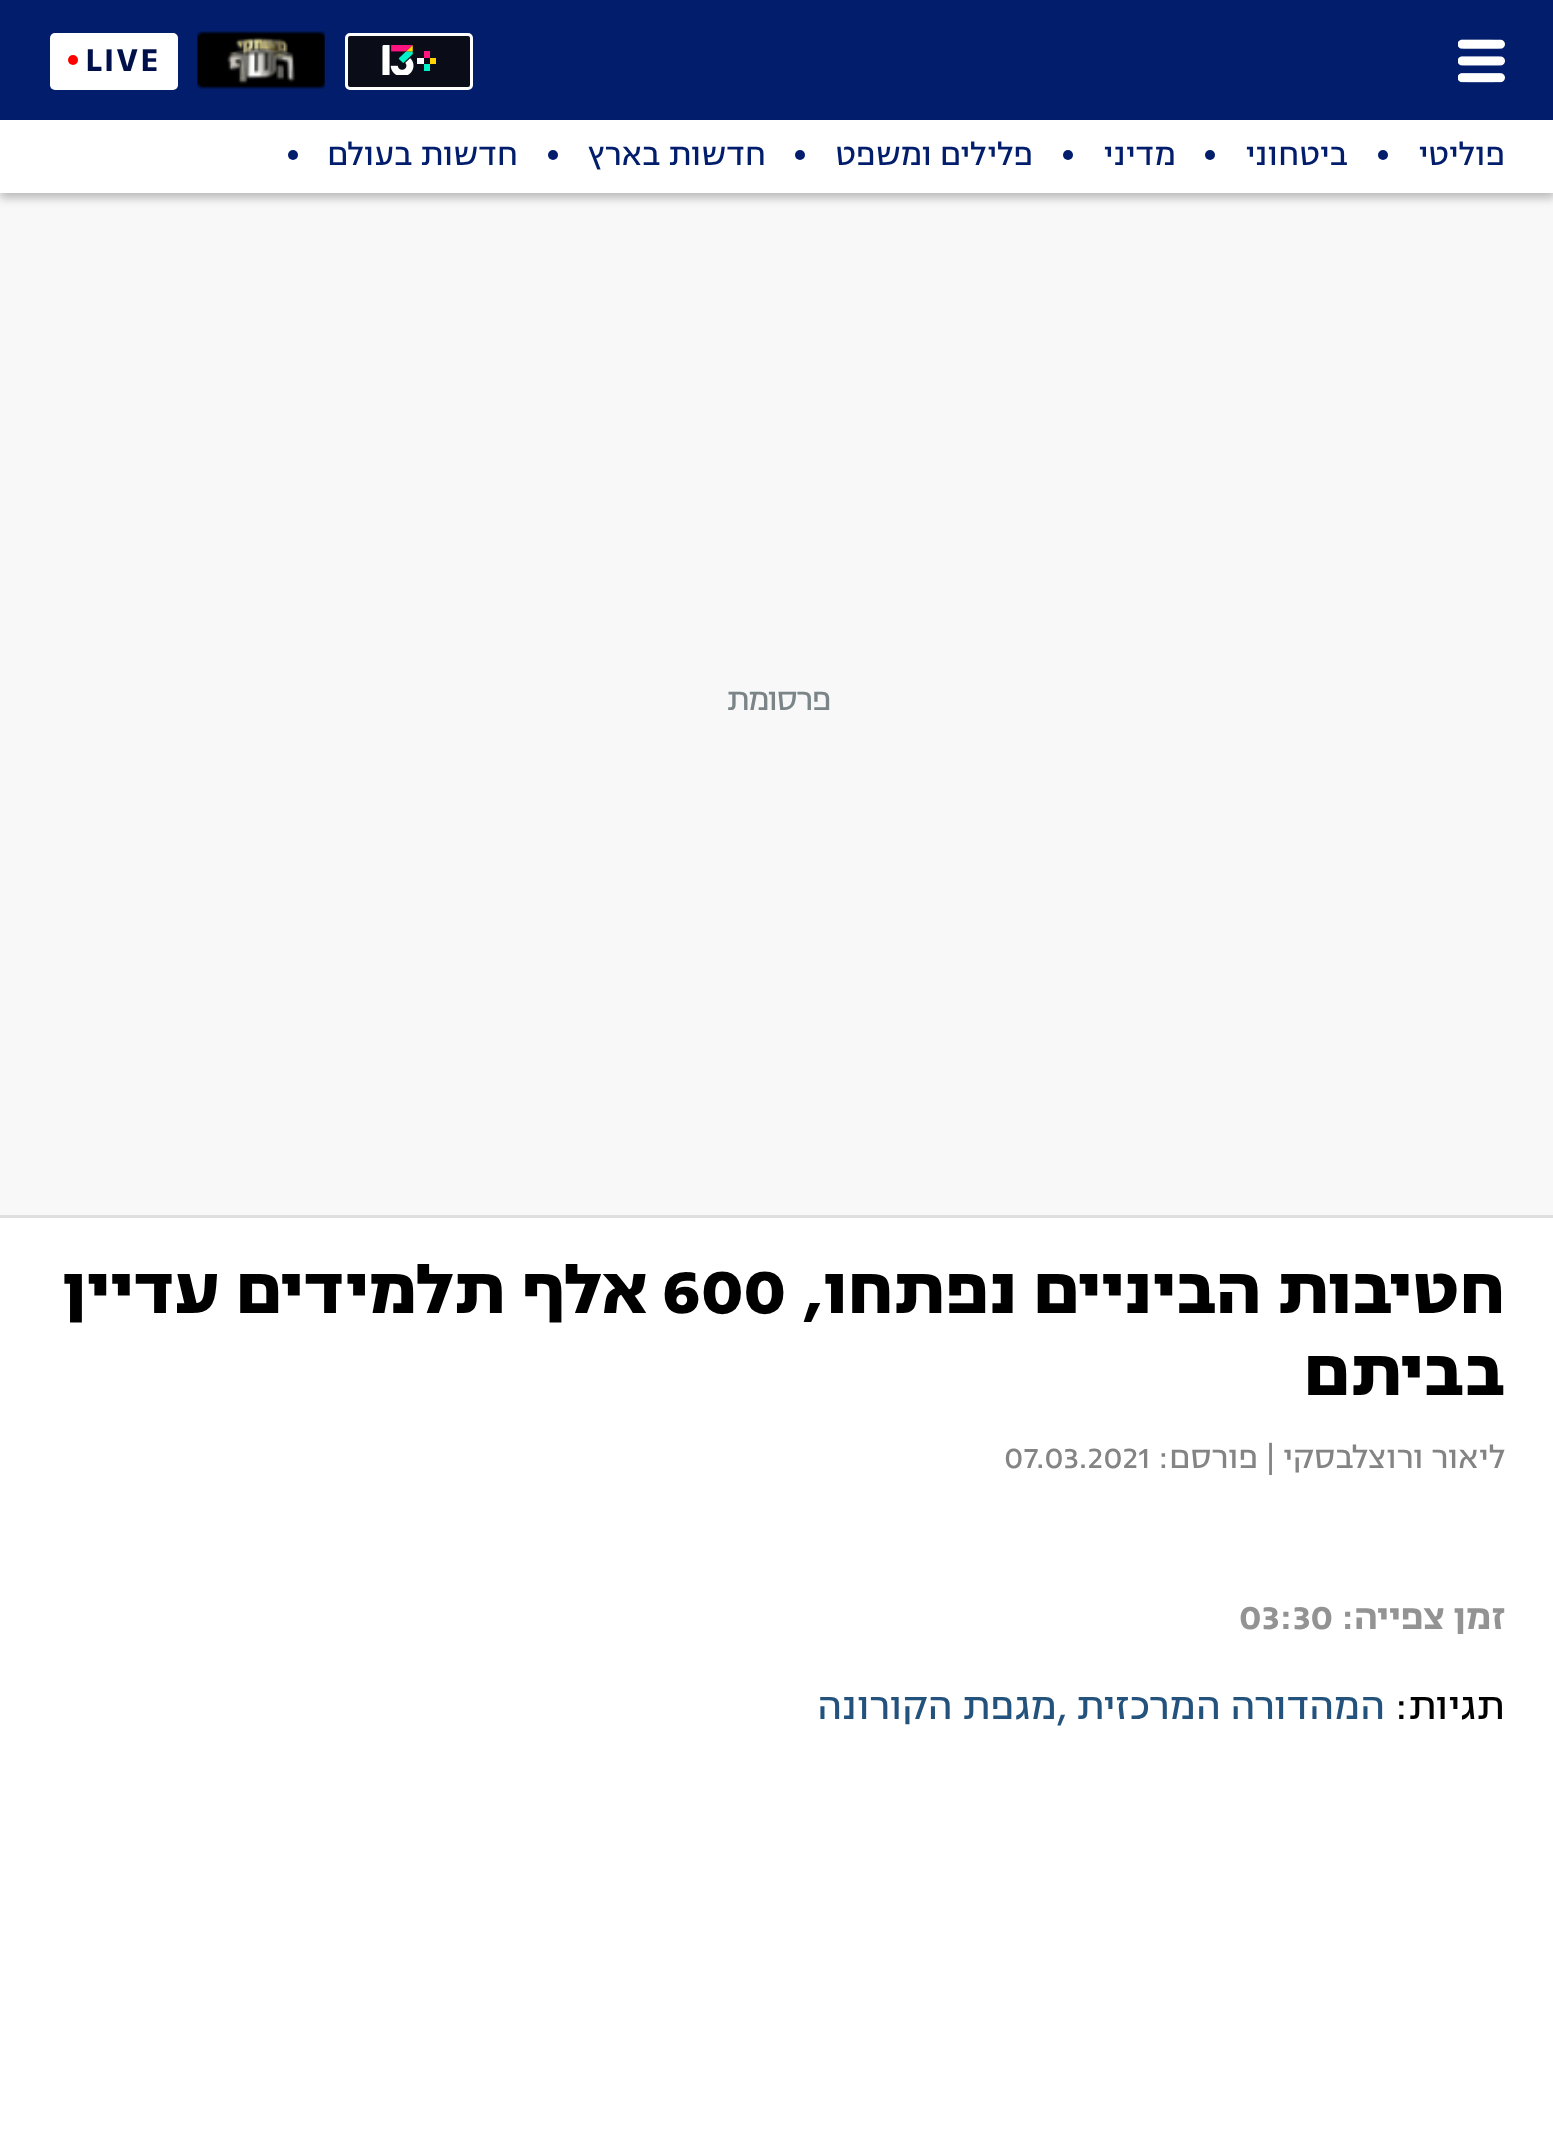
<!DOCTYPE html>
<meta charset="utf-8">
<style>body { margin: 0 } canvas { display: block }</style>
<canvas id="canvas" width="1553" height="2131"></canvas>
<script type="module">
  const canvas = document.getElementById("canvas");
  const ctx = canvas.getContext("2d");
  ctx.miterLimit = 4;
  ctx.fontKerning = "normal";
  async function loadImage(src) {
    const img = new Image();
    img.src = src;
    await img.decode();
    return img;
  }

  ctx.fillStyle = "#ffffff";
  ctx.fillRect(0, 0, 1553, 2131);
  ctx.fillStyle = "#f8f8f8";
  ctx.fillRect(0, 193, 1553, 1022);
  ctx.fillStyle = "rgba(0, 0, 0, 0.25)";
  ctx.filter = "blur(5px)";
  ctx.beginPath();
  ctx.rect(0, 5, 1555, 193);
  ctx.fill();
  ctx.filter = "none";
  ctx.fillStyle = "#011d6b";
  ctx.fillRect(0, 0, 1553, 120);
  ctx.drawImage(await loadImage("img1.png"), 1458, 39, 47, 44);
  ctx.fillStyle = "#0a0c18";
  ctx.beginPath();
  ctx.roundRect(346.5, 34.5, 125, 54, 3.5);
  ctx.fill();
  ctx.strokeStyle = "#ffffff";
  ctx.lineWidth = 3;
  ctx.stroke();
  ctx.drawImage(await loadImage("img2.png"), 382, 45, 54, 30);
  ctx.drawImage(await loadImage("img3.png"), 197, 31, 128, 58);
  ctx.fillStyle = "#ffffff";
  ctx.beginPath();
  ctx.roundRect(50, 33, 128, 57, 5);
  ctx.fill();
  ctx.letterSpacing = "1.5px";
  ctx.font = "600 38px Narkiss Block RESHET";
  ctx.fillStyle = "#00104a";
  ctx.fillText("LIVE", 85, 71);
  ctx.fillStyle = "#ff0000";
  ctx.beginPath();
  ctx.arc(73, 60, 5, 0, Math.PI * 2);
  ctx.fill();
  ctx.fillStyle = "#ffffff";
  ctx.fillRect(0, 120, 1553, 73);
  ctx.letterSpacing = "0px";
  ctx.direction = "rtl";
  ctx.font = "35px Narkiss Block RESHET";
  ctx.fillStyle = "#011d6b";
  ctx.fillText("פוליטי", 1505, 165);
  ctx.beginPath();
  ctx.arc(1383, 155, 5, 0, Math.PI * 2);
  ctx.fill();
  ctx.fillText("ביטחוני", 1348, 165);
  ctx.beginPath();
  ctx.arc(1210, 155, 5, 0, Math.PI * 2);
  ctx.fill();
  ctx.fillText("מדיני", 1176, 165);
  ctx.beginPath();
  ctx.arc(1068, 155, 5, 0, Math.PI * 2);
  ctx.fill();
  ctx.fillText("פלילים ומשפט", 1033, 165);
  ctx.beginPath();
  ctx.arc(800, 155, 5, 0, Math.PI * 2);
  ctx.fill();
  ctx.fillText("חדשות בארץ", 766, 165);
  ctx.beginPath();
  ctx.arc(553, 155, 5, 0, Math.PI * 2);
  ctx.fill();
  ctx.fillText("חדשות בעולם", 518, 165);
  ctx.beginPath();
  ctx.arc(293, 155, 5, 0, Math.PI * 2);
  ctx.fill();
  ctx.fillStyle = "#dfdfdf";
  ctx.fillRect(0, 1215, 1553, 3);
  ctx.letterSpacing = "-1.5px";
  ctx.fillStyle = "#7b8588";
  ctx.fillText("פרסומת", 830, 710);
  ctx.letterSpacing = "0px";
  ctx.font = "bold 75px Narkiss Block RESHET";
  ctx.fillStyle = "#000000";
  ctx.fillText("חטיבות הביניים נפתחו,", 1505, 1313);
  ctx.direction = "ltr";
  ctx.fillText("600", 662, 1313);
  ctx.direction = "rtl";
  ctx.fillText("אלף תלמידים עדיין", 647, 1313);
  ctx.fillText("בביתם", 1505, 1395);
  ctx.font = "35px Narkiss Block RESHET";
  ctx.fillStyle = "#848484";
  ctx.fillText("ליאור ורוצלבסקי |", 1505, 1468);
  ctx.fillText("פורסם:", 1258, 1468);
  ctx.direction = "ltr";
  ctx.fillText("07.03.2021", 1004, 1468);
  ctx.direction = "rtl";
  ctx.font = "600 40px Narkiss Block RESHET";
  ctx.fillStyle = "#939393";
  ctx.fillText("זמן צפייה:", 1505, 1629);
  ctx.direction = "ltr";
  ctx.fillText("03:30", 1239, 1629);
  ctx.direction = "rtl";
  ctx.font = "42.5px Narkiss Block RESHET";
  ctx.fillStyle = "#000000";
  ctx.fillText("תגיות:", 1505, 1719);
  ctx.fillStyle = "#23527c";
  ctx.fillText("המהדורה המרכזית", 1385, 1719);
  ctx.direction = "ltr";
  ctx.fillText(",", 1057, 1719);
  ctx.direction = "rtl";
  ctx.fillText("מגפת הקורונה", 1057, 1719);
</script>
